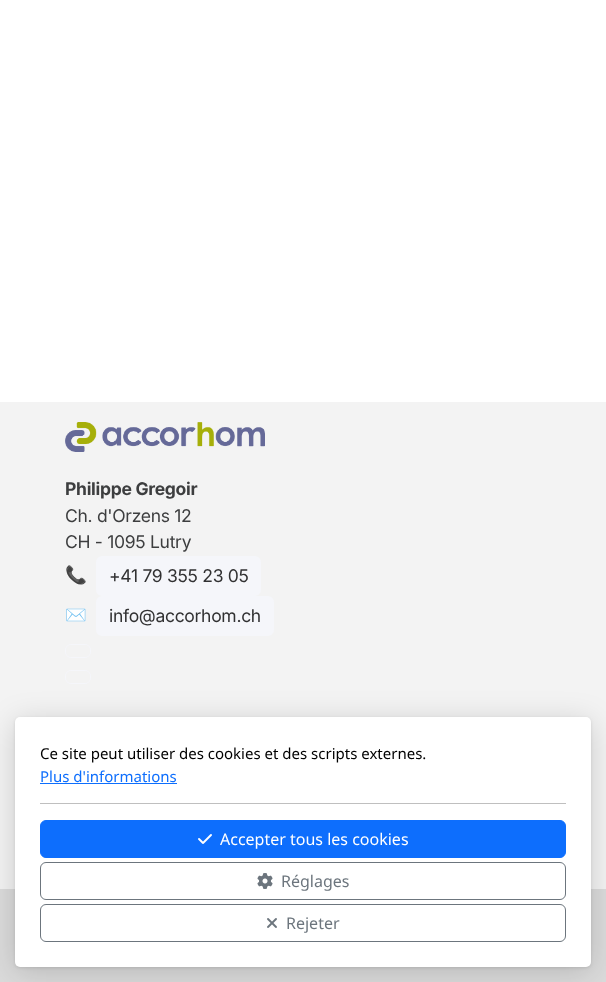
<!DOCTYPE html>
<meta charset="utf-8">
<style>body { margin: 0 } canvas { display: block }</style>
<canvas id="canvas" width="606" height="982"></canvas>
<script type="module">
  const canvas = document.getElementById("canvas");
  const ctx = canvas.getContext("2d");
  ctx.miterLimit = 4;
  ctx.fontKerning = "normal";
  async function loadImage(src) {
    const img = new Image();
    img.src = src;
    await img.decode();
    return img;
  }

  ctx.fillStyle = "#ffffff";
  ctx.fillRect(0, 0, 606, 982);
  ctx.fillStyle = "#f3f3f3";
  ctx.fillRect(0, 402, 606, 487);
  ctx.drawImage(await loadImage("img1.png"), 65, 422, 200, 30);
  ctx.letterSpacing = "-0.3px";
  ctx.font = "bold 17.5px Inter";
  ctx.fillStyle = "#3d3e3f";
  ctx.fillText("Philippe Gregoir", 65, 495);
  ctx.font = "17.5px Inter";
  ctx.fillText("Ch. d'Orzens 12", 65, 522);
  ctx.fillText("CH - 1095 Lutry", 65, 548);
  ctx.font = "17.5px Noto Color Emoji";
  ctx.fillStyle = "#1b203a";
  ctx.fillText("📞", 65, 581);
  ctx.fillStyle = "#f5f6fa";
  ctx.beginPath();
  ctx.roundRect(96, 556, 165, 40, 6);
  ctx.fill();
  ctx.font = "17.5px Inter";
  ctx.fillStyle = "#313132";
  ctx.fillText("+41 79 355 23 05", 109, 582);
  ctx.font = "17.5px Noto Color Emoji";
  ctx.fillStyle = "#1b203a";
  ctx.fillText("✉️", 65, 621);
  ctx.fillStyle = "#f5f6fa";
  ctx.beginPath();
  ctx.roundRect(96, 596, 178, 40, 6);
  ctx.fill();
  ctx.font = "17.5px Inter";
  ctx.fillStyle = "#313132";
  ctx.fillText("info@accorhom.ch", 109, 622);
  ctx.beginPath();
  ctx.roundRect(65.5, 644.5, 25, 13, 5.5);
  ctx.strokeStyle = "#f5f6fa";
  ctx.stroke();
  ctx.beginPath();
  ctx.roundRect(65.5, 670.5, 25, 13, 5.5);
  ctx.stroke();
  ctx.fillStyle = "#dbdbdb";
  ctx.fillRect(0, 889, 606, 93);
  ctx.fillStyle = "rgba(0, 0, 0, 0.16)";
  ctx.filter = "blur(15px)";
  ctx.beginPath();
  ctx.roundRect(15, 722, 576, 250, 5);
  ctx.fill();
  ctx.filter = "none";
  ctx.fillStyle = "rgba(0, 0, 0, 0.1)";
  ctx.filter = "blur(1.5px)";
  ctx.beginPath();
  ctx.roundRect(15, 718, 576, 250, 5);
  ctx.fill();
  ctx.filter = "none";
  ctx.fillStyle = "#ffffff";
  ctx.beginPath();
  ctx.roundRect(15, 717, 576, 250, 5);
  ctx.fill();
  ctx.letterSpacing = "0px";
  ctx.font = "15px Noto Sans";
  ctx.fillStyle = "#000000";
  ctx.fillText("Ce site peut utiliser des cookies et des scripts externes.", 40, 759);
  ctx.fillStyle = "#0d6efd";
  ctx.fillText("Plus d'informations", 40, 782);
  ctx.fillRect(40, 783, 137, 1);
  ctx.fillStyle = "#bfbfbf";
  ctx.fillRect(40, 803, 526, 1);
  ctx.fillStyle = "#0d6efd";
  ctx.beginPath();
  ctx.roundRect(40.5, 820.5, 525, 37, 5.5);
  ctx.fill();
  ctx.strokeStyle = "#0d6efd";
  ctx.stroke();
  ctx.drawImage(await loadImage("img2.png"), 198, 834, 14, 10);
  ctx.font = "16px Noto Sans";
  ctx.fillStyle = "#ffffff";
  ctx.fillText("Accepter tous les cookies", 220, 845);
  ctx.beginPath();
  ctx.roundRect(40.5, 862.5, 525, 37, 5.5);
  ctx.strokeStyle = "#6c757d";
  ctx.stroke();
  ctx.drawImage(await loadImage("img3.png"), 257, 873, 16, 16);
  ctx.fillStyle = "#6c757d";
  ctx.fillText("Réglages", 281, 887);
  ctx.beginPath();
  ctx.roundRect(40.5, 904.5, 525, 37, 5.5);
  ctx.stroke();
  ctx.drawImage(await loadImage("img4.png"), 267, 918, 10, 10);
  ctx.fillText("Rejeter", 286, 929);
</script>
